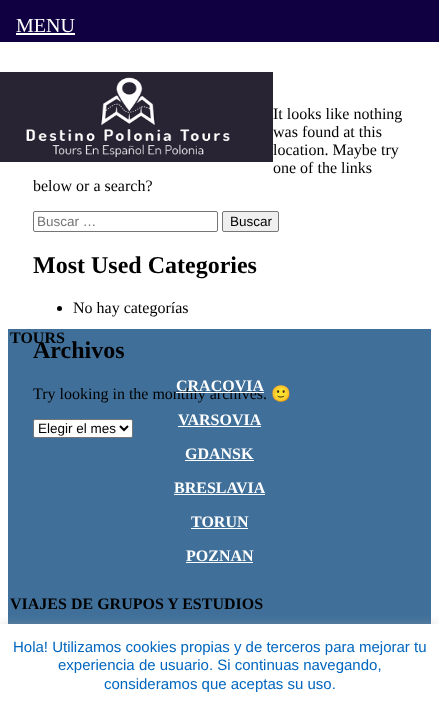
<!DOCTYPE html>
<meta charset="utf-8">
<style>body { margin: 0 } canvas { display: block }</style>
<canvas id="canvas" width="439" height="704"></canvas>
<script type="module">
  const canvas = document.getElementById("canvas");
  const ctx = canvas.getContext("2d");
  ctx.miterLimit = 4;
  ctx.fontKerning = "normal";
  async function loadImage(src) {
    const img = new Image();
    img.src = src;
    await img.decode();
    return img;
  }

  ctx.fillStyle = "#ffffff";
  ctx.fillRect(0, 0, 439, 704);
  ctx.fillStyle = "#100041";
  ctx.fillRect(0, 0, 439, 42);
  ctx.font = "20px Liberation Serif";
  ctx.fillStyle = "#ffffff";
  ctx.fillText("MENU", 16, 32);
  ctx.fillRect(16, 33, 59, 2);
  ctx.drawImage(await loadImage("img1.png"), 0, 72, 273, 90);
  ctx.font = "16px Liberation Serif";
  ctx.fillStyle = "#000000";
  ctx.fillText("It looks like nothing", 273, 119);
  ctx.fillText("was found at this", 273, 137);
  ctx.fillText("location. Maybe try", 273, 155);
  ctx.fillText("one of the links", 273, 173);
  ctx.fillText("below or a search?", 33, 191);
  ctx.beginPath();
  ctx.roundRect(33.5, 211.5, 184, 20, 1.5);
  ctx.strokeStyle = "#767676";
  ctx.stroke();
  ctx.font = "13.5px Liberation Sans";
  ctx.fillStyle = "#757575";
  ctx.fillText("Buscar …", 37, 226);
  ctx.fillStyle = "#efefef";
  ctx.beginPath();
  ctx.roundRect(222.5, 211.5, 56, 20, 1.5);
  ctx.fill();
  ctx.stroke();
  ctx.fillStyle = "#000000";
  ctx.fillText("Buscar", 230, 226);
  ctx.font = "bold 24px Liberation Serif";
  ctx.fillText("Most Used Categories", 33, 273);
  ctx.beginPath();
  ctx.arc(59.5, 308.5, 2.5, 0, Math.PI * 2);
  ctx.fill();
  ctx.font = "16px Liberation Serif";
  ctx.fillText("No hay categorías", 73, 313);
  ctx.fillStyle = "#40709a";
  ctx.fillRect(8, 329, 423, 295);
  ctx.font = "bold 24px Liberation Serif";
  ctx.fillStyle = "#000000";
  ctx.fillText("Archivos", 33, 358);
  ctx.font = "16px Liberation Serif";
  ctx.fillText("Try looking in the monthly archives.", 33, 399);
  ctx.font = "16px Noto Color Emoji";
  ctx.fillText("🙂", 271, 399);
  ctx.fillStyle = "#ffffff";
  ctx.beginPath();
  ctx.roundRect(33.5, 419.5, 99, 18, 1.5);
  ctx.fill();
  ctx.stroke();
  ctx.beginPath();
  ctx.moveTo(120, 426);
  ctx.lineTo(124, 430);
  ctx.lineTo(128, 426);
  ctx.strokeStyle = "#000000";
  ctx.lineWidth = 2;
  ctx.stroke();
  ctx.font = "13.5px Liberation Sans";
  ctx.fillStyle = "#000000";
  ctx.fillText("Elegir el mes", 38, 433);
  ctx.font = "bold 16px Liberation Serif";
  ctx.fillText("TOURS", 10, 343);
  ctx.fillStyle = "#ffffff";
  ctx.fillText("CRACOVIA", 176, 391);
  ctx.fillRect(176, 392, 88, 1);
  ctx.fillText("VARSOVIA", 178, 425);
  ctx.fillRect(178, 426, 83, 1);
  ctx.fillText("GDANSK", 185, 459);
  ctx.fillRect(185, 460, 69, 1);
  ctx.fillText("BRESLAVIA", 174, 493);
  ctx.fillRect(174, 494, 91, 1);
  ctx.fillText("TORUN", 191, 527);
  ctx.fillRect(191, 528, 57, 1);
  ctx.fillText("POZNAN", 186, 561);
  ctx.fillRect(186, 562, 67, 1);
  ctx.fillStyle = "#000000";
  ctx.fillText("VIAJES DE GRUPOS Y ESTUDIOS", 10, 609);
  ctx.fillStyle = "rgba(172, 171, 171, 0.3)";
  ctx.filter = "blur(5px)";
  ctx.beginPath();
  ctx.rect(0, 623, 439, 80);
  ctx.fill();
  ctx.filter = "none";
  ctx.fillStyle = "#ffffff";
  ctx.fillRect(0, 624, 439, 80);
  ctx.font = "15px Liberation Sans";
  ctx.fillStyle = "#0066bf";
  ctx.fillText("Hola! Utilizamos cookies propias y de terceros para mejorar tu", 13, 652);
  ctx.fillText("experiencia de usuario. Si continuas navegando,", 58, 670);
  ctx.fillText("consideramos que aceptas su uso.", 104, 689);
</script>
